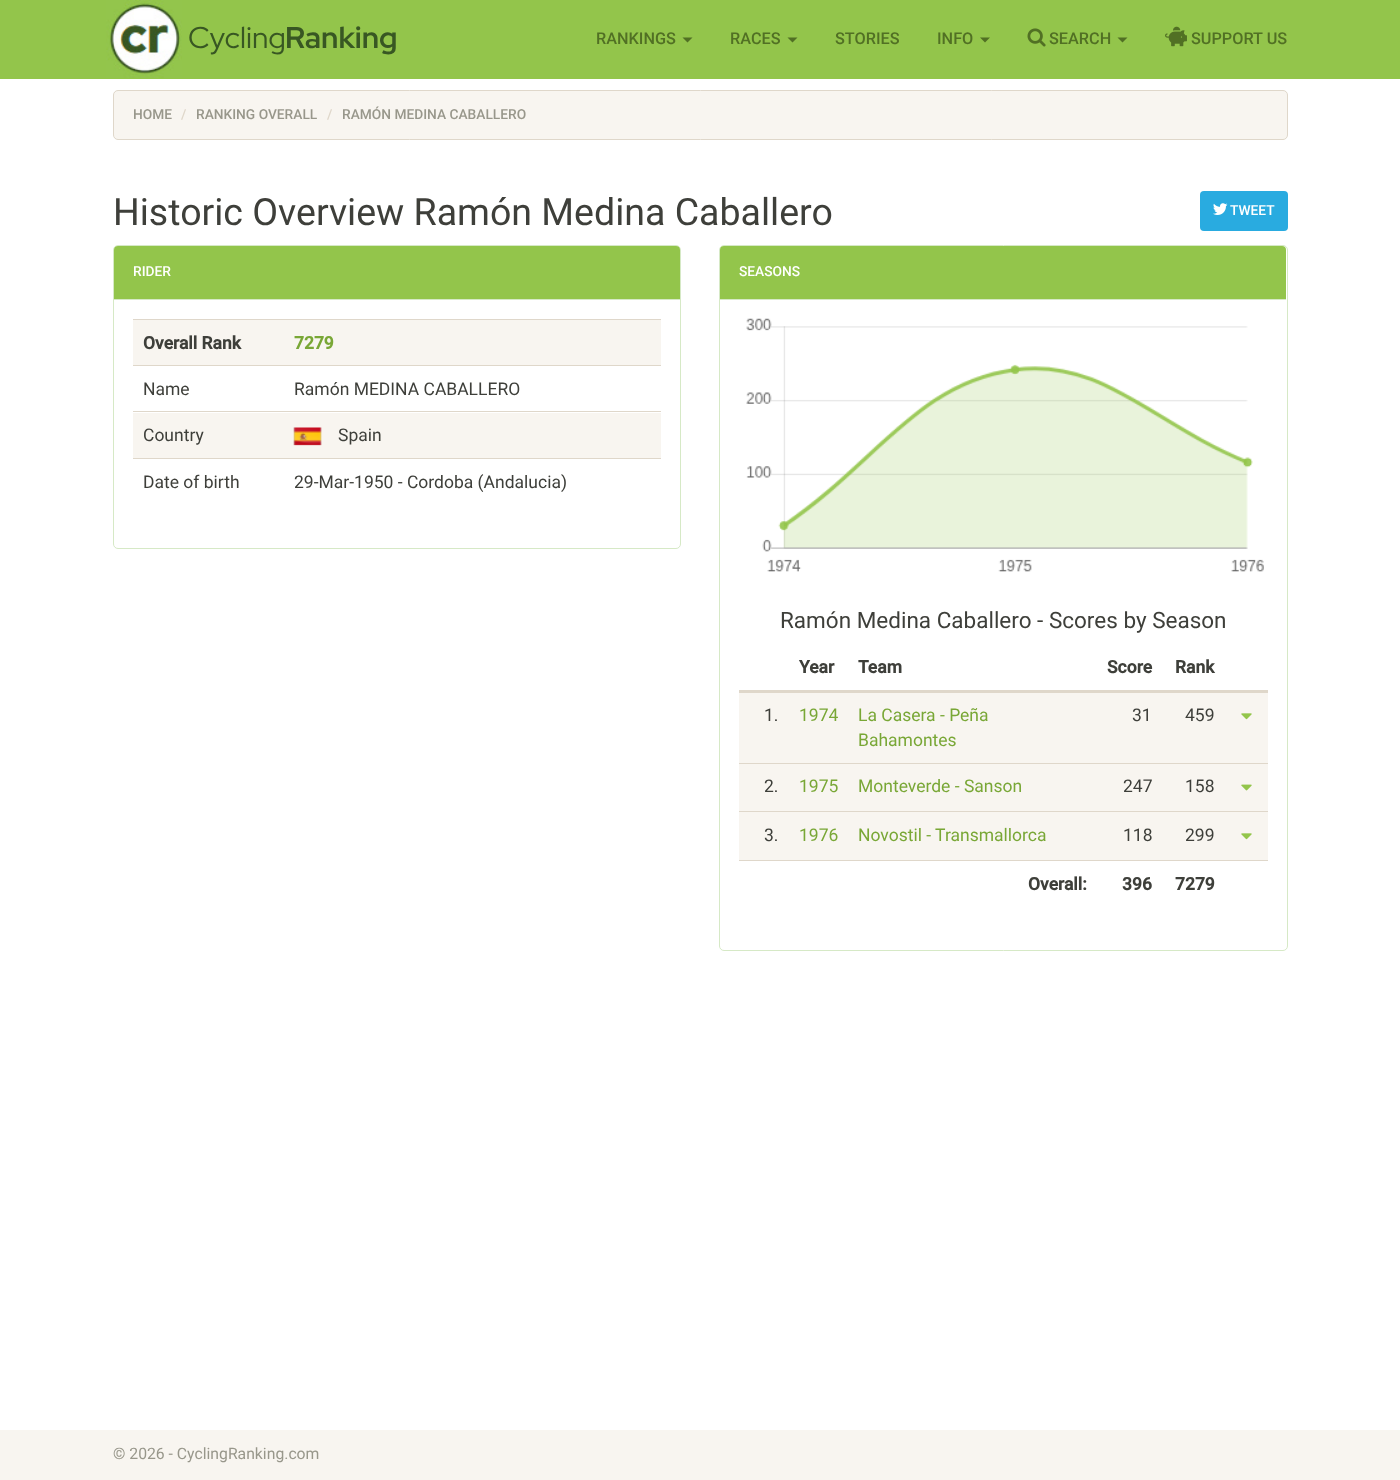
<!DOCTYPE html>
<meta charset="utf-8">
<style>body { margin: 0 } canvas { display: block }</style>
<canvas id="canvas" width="1400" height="1480"></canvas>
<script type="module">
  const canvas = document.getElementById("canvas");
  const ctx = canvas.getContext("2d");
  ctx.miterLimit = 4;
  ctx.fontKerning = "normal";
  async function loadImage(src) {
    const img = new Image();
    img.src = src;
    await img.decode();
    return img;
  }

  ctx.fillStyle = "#ffffff";
  ctx.fillRect(0, 0, 1400, 1480);
  ctx.fillStyle = "#93c54b";
  ctx.fillRect(0, 0, 1400, 79);
  ctx.drawImage(await loadImage("img1.png"), 106, 0, 76, 78);
  ctx.font = "30px Red Hat Display";
  ctx.fillStyle = "#385723";
  ctx.fillText("Cycling", 188, 48);
  ctx.font = "bold 30px Red Hat Display";
  ctx.fillText("Ranking", 285, 48);
  ctx.font = "500 16.25px Roboto";
  ctx.fillStyle = "#517024";
  ctx.fillText("RANKINGS", 596, 44);
  ctx.beginPath();
  ctx.moveTo(682.5, 37.5);
  ctx.lineTo(692.5, 37.5);
  ctx.lineTo(687.5, 42.5);
  ctx.closePath();
  ctx.fill();
  ctx.fillText("RACES", 730, 44);
  ctx.beginPath();
  ctx.moveTo(787.5, 37.5);
  ctx.lineTo(797.5, 37.5);
  ctx.lineTo(792.5, 42.5);
  ctx.closePath();
  ctx.fill();
  ctx.fillText("STORIES", 835, 44);
  ctx.fillText("INFO", 937, 44);
  ctx.beginPath();
  ctx.moveTo(980, 37.5);
  ctx.lineTo(990, 37.5);
  ctx.lineTo(985, 42.5);
  ctx.closePath();
  ctx.fill();
  ctx.drawImage(await loadImage("img2.png"), 1027, 28, 19, 19);
  ctx.fillText("SEARCH", 1049, 44);
  ctx.beginPath();
  ctx.moveTo(1117.5, 37.5);
  ctx.lineTo(1127.5, 37.5);
  ctx.lineTo(1122.5, 42.5);
  ctx.closePath();
  ctx.fill();
  ctx.drawImage(await loadImage("img3.png"), 1165, 26, 22, 21);
  ctx.fillText("SUPPORT US", 1191, 44);
  ctx.fillStyle = "#f8f5f0";
  ctx.beginPath();
  ctx.roundRect(113.5, 90.5, 1174, 49, 4.5);
  ctx.fill();
  ctx.strokeStyle = "#dfd7ca";
  ctx.stroke();
  ctx.font = "500 13.75px Roboto";
  ctx.fillStyle = "#98978b";
  ctx.fillText("HOME", 133, 119);
  ctx.fillStyle = "#dfd7ca";
  ctx.fillText("/", 181, 119);
  ctx.fillStyle = "#98978b";
  ctx.fillText("RANKING OVERALL", 196, 119);
  ctx.fillStyle = "#dfd7ca";
  ctx.fillText("/", 327, 119);
  ctx.fillStyle = "#98978b";
  ctx.fillText("RAMÓN MEDINA CABALLERO", 342, 119);
  ctx.font = "37.5px Roboto";
  ctx.fillStyle = "#3e3f3a";
  ctx.fillText("Historic Overview Ramón Medina Caballero", 113, 225);
  ctx.fillStyle = "#29abe0";
  ctx.beginPath();
  ctx.roundRect(1200, 191, 88, 40, 4);
  ctx.fill();
  ctx.drawImage(await loadImage("img4.png"), 1213, 203, 15, 12);
  ctx.font = "500 13.75px Roboto";
  ctx.fillStyle = "#ffffff";
  ctx.fillText("TWEET", 1230, 215);
  ctx.beginPath();
  ctx.roundRect(113.5, 245.5, 567, 303, 4.5);
  ctx.strokeStyle = "#d6e9c6";
  ctx.stroke();
  ctx.fillStyle = "#93c54b";
  ctx.beginPath();
  ctx.roundRect(114, 246, 566, 54, [4, 4, 0, 0]);
  ctx.fill();
  ctx.fillStyle = "#d6e9c6";
  ctx.fillRect(114, 299, 566, 1);
  ctx.fillStyle = "#ffffff";
  ctx.fillText("RIDER", 133, 276);
  ctx.fillStyle = "#f8f5f0";
  ctx.fillRect(133, 320, 528, 45);
  ctx.font = "bold 17.5px Roboto";
  ctx.fillStyle = "#3e3f3a";
  ctx.fillText("Overall Rank", 143, 349);
  ctx.fillStyle = "#dfd7ca";
  ctx.fillRect(133, 319, 528, 1);
  ctx.fillStyle = "#79a736";
  ctx.fillText("7279", 294, 349);
  ctx.font = "17.5px Roboto";
  ctx.fillStyle = "#3e3f3a";
  ctx.fillText("Name", 143, 395);
  ctx.fillStyle = "#dfd7ca";
  ctx.fillRect(133, 365, 528, 1);
  ctx.fillStyle = "#3e3f3a";
  ctx.fillText("Ramón MEDINA CABALLERO", 294, 395);
  ctx.fillStyle = "#f8f5f0";
  ctx.fillRect(133, 413, 528, 45);
  ctx.fillStyle = "#3e3f3a";
  ctx.fillText("Country", 143, 441);
  ctx.fillStyle = "#dfd7ca";
  ctx.fillRect(133, 411, 528, 1);
  ctx.drawImage(await loadImage("img5.png"), 293, 427, 29, 19);
  ctx.fillStyle = "#3e3f3a";
  ctx.fillText("Spain", 338, 441);
  ctx.fillText("Date of birth", 143, 488);
  ctx.fillStyle = "#dfd7ca";
  ctx.fillRect(133, 458, 528, 1);
  ctx.fillStyle = "#3e3f3a";
  ctx.fillText("29-Mar-1950 - Cordoba (Andalucia)", 294, 488);
  ctx.beginPath();
  ctx.roundRect(719.5, 245.5, 568, 705, 4.5);
  ctx.stroke();
  ctx.fillStyle = "#93c54b";
  ctx.beginPath();
  ctx.roundRect(720, 246, 566, 54, [4, 4, 0, 0]);
  ctx.fill();
  ctx.fillStyle = "#d6e9c6";
  ctx.fillRect(720, 299, 566, 1);
  ctx.font = "500 13.75px Roboto";
  ctx.fillStyle = "#ffffff";
  ctx.fillText("SEASONS", 739, 276);
  ctx.drawImage(await loadImage("img6.png"), 746, 318, 518, 254);
  ctx.font = "22.5px Roboto";
  ctx.fillStyle = "#3e3f3a";
  ctx.fillText("Ramón Medina Caballero - Scores by Season", 780, 628);
  ctx.font = "bold 17.5px Roboto";
  ctx.fillText("Year", 799, 673);
  ctx.fillText("Team", 858, 673);
  ctx.fillText("Score", 1107, 673);
  ctx.fillText("Rank", 1175, 673);
  ctx.fillStyle = "#dfd7ca";
  ctx.fillRect(739, 690, 529, 3);
  ctx.fillStyle = "#f8f5f0";
  ctx.fillRect(739, 693, 529, 70);
  ctx.font = "17.5px Roboto";
  ctx.fillStyle = "#3e3f3a";
  ctx.fillText("1.", 764, 721);
  ctx.fillStyle = "#79a736";
  ctx.fillText("1974", 799, 721);
  ctx.fillText("La Casera - Peña", 858, 721);
  ctx.fillText("Bahamontes", 858, 746);
  ctx.fillStyle = "#3e3f3a";
  ctx.fillText("31", 1132, 721);
  ctx.fillText("459", 1185, 721);
  ctx.drawImage(await loadImage("img7.png"), 1241, 713, 11, 7);
  ctx.fillStyle = "#dfd7ca";
  ctx.fillRect(739, 763, 529, 1);
  ctx.fillStyle = "#f8f5f0";
  ctx.fillRect(739, 764, 529, 49);
  ctx.fillStyle = "#3e3f3a";
  ctx.fillText("2.", 764, 792);
  ctx.fillStyle = "#79a736";
  ctx.fillText("1975", 799, 792);
  ctx.fillText("Monteverde - Sanson", 858, 792);
  ctx.fillStyle = "#3e3f3a";
  ctx.fillText("247", 1123, 792);
  ctx.fillText("158", 1185, 792);
  ctx.drawImage(await loadImage("img8.png"), 1241, 784, 11, 7);
  ctx.fillStyle = "#dfd7ca";
  ctx.fillRect(739, 811, 529, 1);
  ctx.fillStyle = "#f8f5f0";
  ctx.fillRect(739, 813, 529, 47);
  ctx.fillStyle = "#3e3f3a";
  ctx.fillText("3.", 764, 841);
  ctx.fillStyle = "#79a736";
  ctx.fillText("1976", 799, 841);
  ctx.fillText("Novostil - Transmallorca", 858, 841);
  ctx.fillStyle = "#3e3f3a";
  ctx.fillText("118", 1123, 841);
  ctx.fillText("299", 1185, 841);
  ctx.drawImage(await loadImage("img7.png"), 1241, 833, 11, 7);
  ctx.fillStyle = "#dfd7ca";
  ctx.fillRect(739, 860, 529, 1);
  ctx.font = "bold 17.5px Roboto";
  ctx.fillStyle = "#3e3f3a";
  ctx.fillText("Overall:", 1028, 890);
  ctx.fillText("396", 1122, 890);
  ctx.fillText("7279", 1175, 890);
  ctx.fillStyle = "#f8f5f0";
  ctx.fillRect(0, 1430, 1400, 50);
  ctx.font = "15.75px Roboto";
  ctx.fillStyle = "#98978b";
  ctx.fillText("© 2026 - CyclingRanking.com", 113, 1459);
</script>
